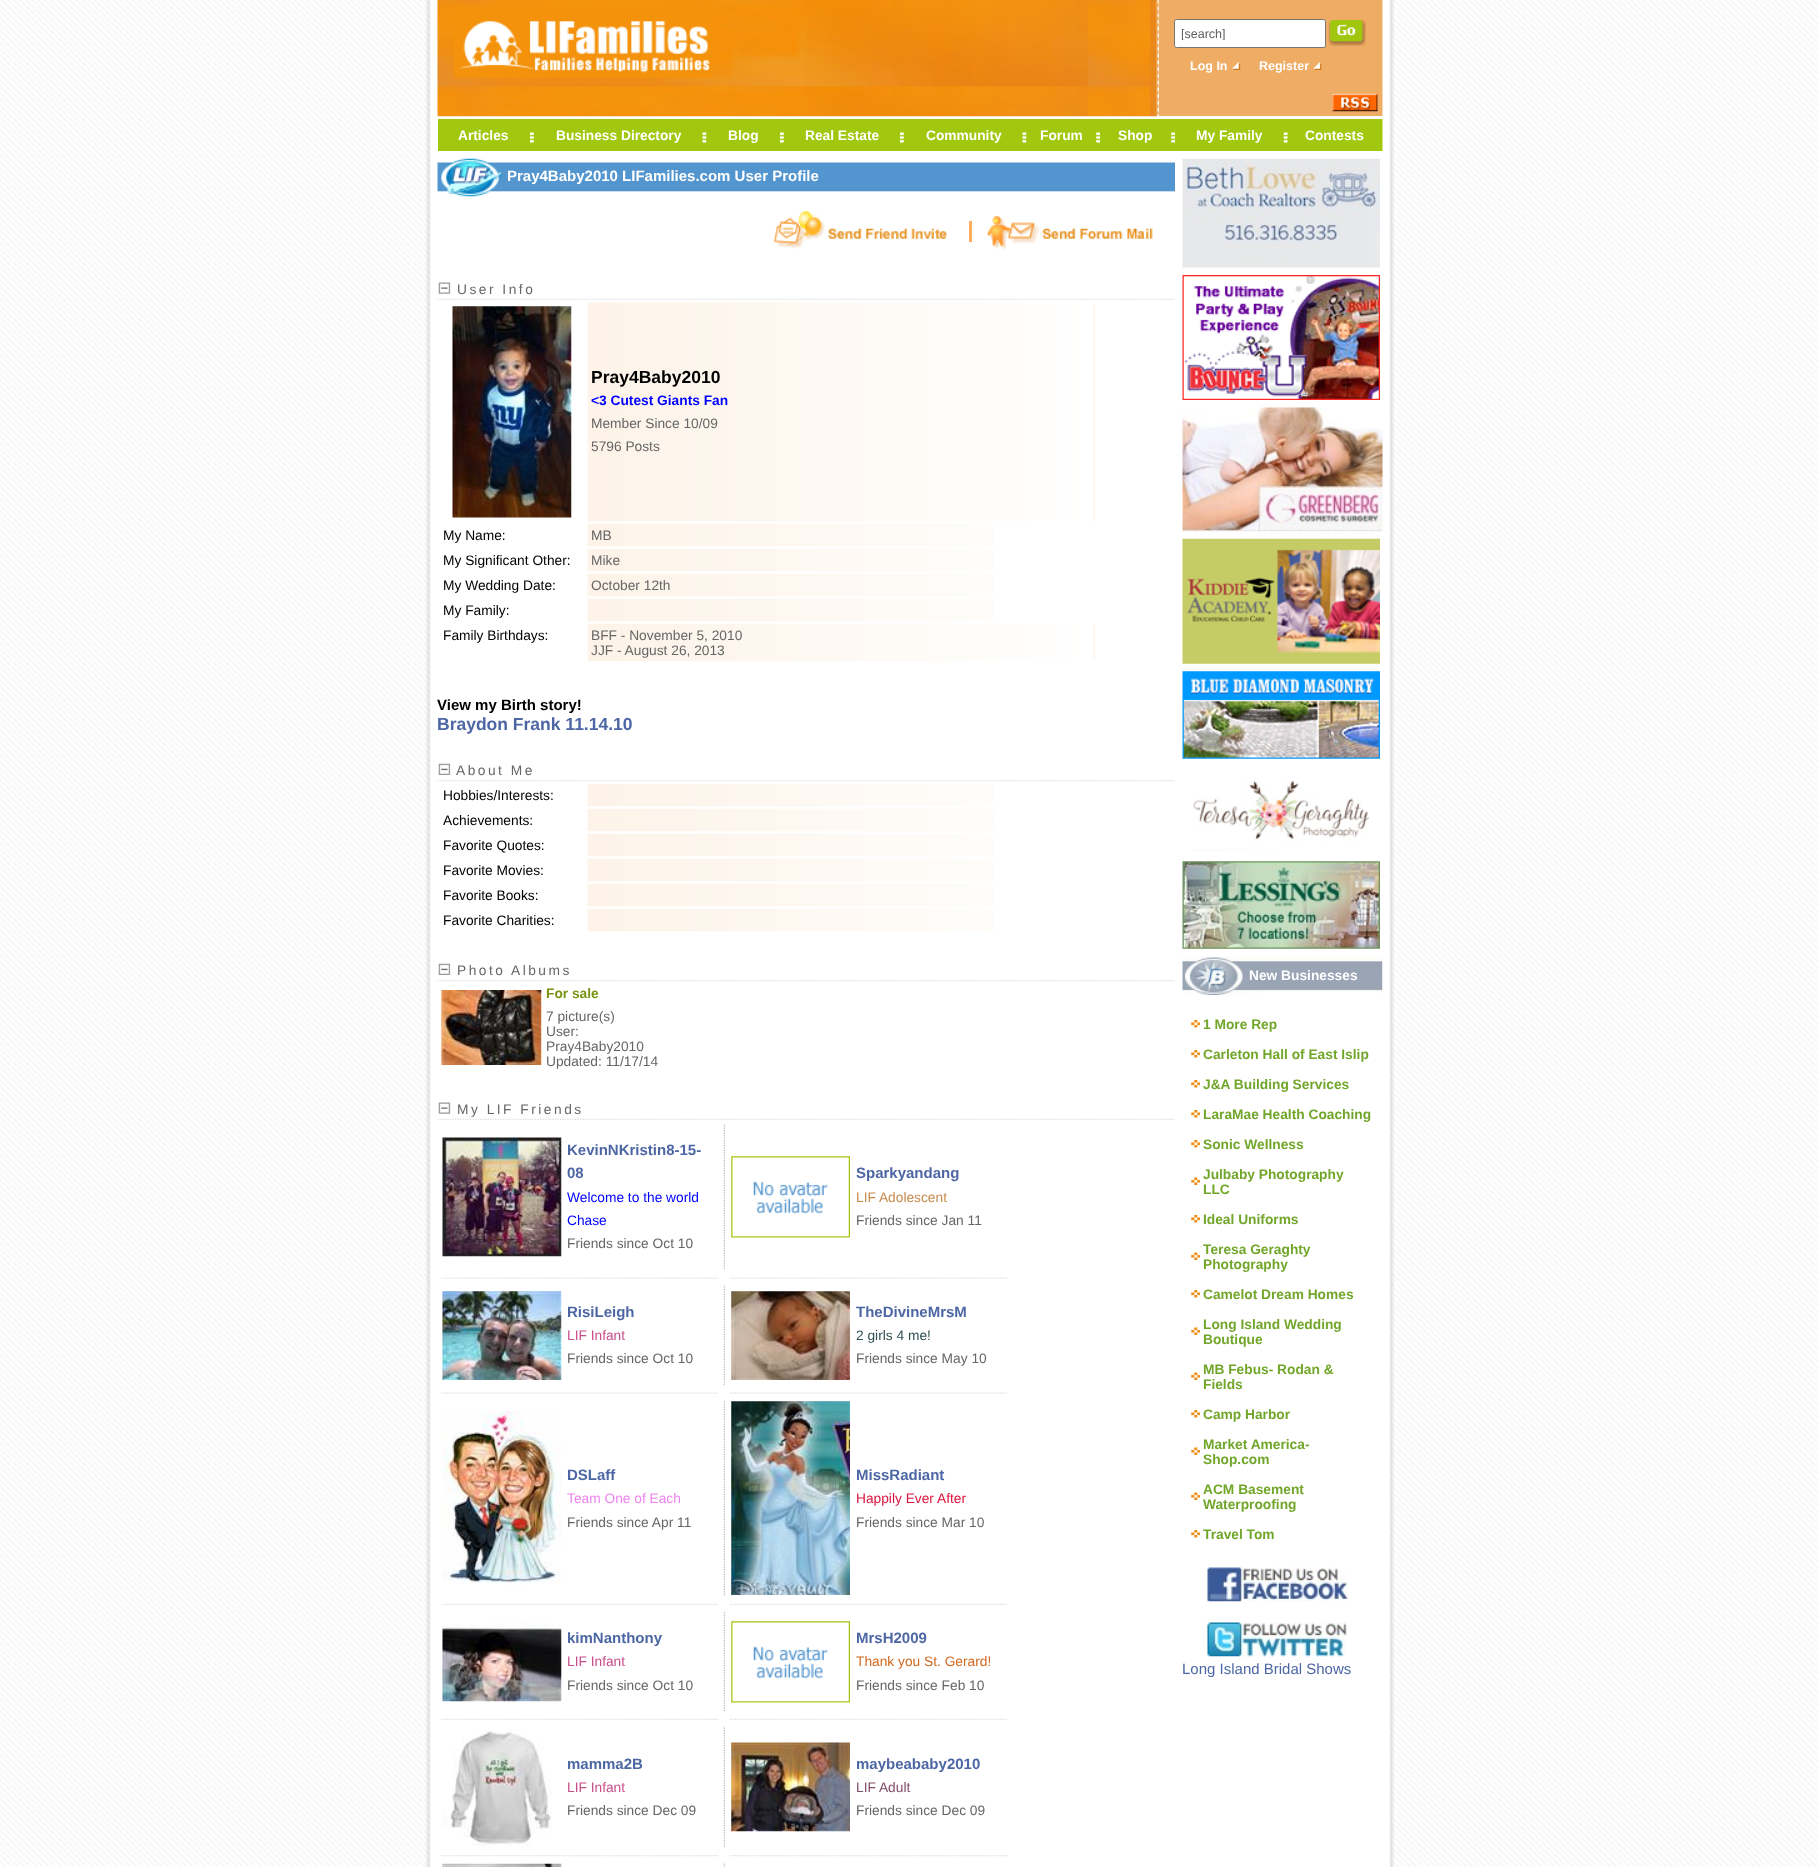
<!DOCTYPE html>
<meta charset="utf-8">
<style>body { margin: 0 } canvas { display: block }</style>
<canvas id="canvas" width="1818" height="1867"></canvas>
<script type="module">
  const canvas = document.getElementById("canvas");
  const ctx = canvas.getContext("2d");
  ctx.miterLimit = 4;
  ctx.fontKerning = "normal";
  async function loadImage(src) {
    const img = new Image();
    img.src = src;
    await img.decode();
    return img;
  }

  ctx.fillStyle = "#ffffff";
  ctx.fillRect(0, 0, 1818, 1867);
  ctx.drawImage(await loadImage("img1.png"), 0, 0, 424, 1867);
  ctx.drawImage(await loadImage("img2.png"), 424, 0, 7, 1867);
  ctx.drawImage(await loadImage("img3.png"), 424, 1279, 6, 6);
  ctx.drawImage(await loadImage("img4.png"), 437, 0, 713, 117);
  ctx.drawImage(await loadImage("img5.png"), 453, 6, 259, 72);
  ctx.drawImage(await loadImage("img6.png"), 1150, 0, 9, 117);
  ctx.fillStyle = "#efac64";
  ctx.fillRect(1159, 0, 224, 116);
  ctx.fillStyle = "#ffffff";
  ctx.beginPath();
  ctx.roundRect(1174.5, 19.5, 151, 28, 2);
  ctx.fill();
  ctx.strokeStyle = "#767676";
  ctx.stroke();
  ctx.save();
  ctx.beginPath();
  ctx.rect(1181, 26, 138, 14);
  ctx.clip();
  ctx.font = "12.5px Liberation Sans";
  ctx.fillStyle = "#626061";
  ctx.fillText("[search]", 1181, 38);
  ctx.restore();
  ctx.drawImage(await loadImage("img7.png"), 1328, 20, 39, 27);
  ctx.font = "bold 12.5px Liberation Sans";
  ctx.fillText("Log In", 1190, 70);
  ctx.drawImage(await loadImage("img8.png"), 1232, 62, 9, 8);
  ctx.fillText("Register", 1259, 70);
  ctx.drawImage(await loadImage("img9.png"), 1313, 62, 9, 8);
  ctx.drawImage(await loadImage("img10.png"), 1332, 93, 46, 19);
  ctx.fillStyle = "#a1c70e";
  ctx.fillRect(438, 119, 945, 32);
  ctx.font = "bold 13.75px Liberation Sans";
  ctx.fillStyle = "#ffffff";
  ctx.fillText("Articles", 458, 140);
  ctx.drawImage(await loadImage("img11.png"), 530, 132, 4, 11);
  ctx.fillText("Business Directory", 556, 140);
  ctx.drawImage(await loadImage("img12.png"), 702, 132, 5, 11);
  ctx.fillText("Blog", 728, 140);
  ctx.drawImage(await loadImage("img11.png"), 780, 132, 4, 11);
  ctx.fillText("Real Estate", 805, 140);
  ctx.drawImage(await loadImage("img11.png"), 900, 132, 4, 11);
  ctx.fillText("Community", 926, 140);
  ctx.drawImage(await loadImage("img12.png"), 1022, 132, 5, 11);
  ctx.fillText("Forum", 1040, 140);
  ctx.drawImage(await loadImage("img13.png"), 1096, 132, 4, 11);
  ctx.fillText("Shop", 1118, 140);
  ctx.drawImage(await loadImage("img13.png"), 1171, 132, 4, 11);
  ctx.fillText("My Family", 1196, 140);
  ctx.drawImage(await loadImage("img14.png"), 1283, 132, 5, 11);
  ctx.fillText("Contests", 1305, 140);
  ctx.drawImage(await loadImage("img15.png"), 437, 158, 738, 39);
  ctx.font = "bold 15px Liberation Sans";
  ctx.fillText("Pray4Baby2010 LIFamilies.com User Profile", 507, 181);
  ctx.drawImage(await loadImage("img16.png"), 773, 211, 174, 38);
  ctx.fillStyle = "#ffad5c";
  ctx.fillRect(969, 221, 3, 21);
  ctx.drawImage(await loadImage("img17.png"), 987, 216, 166, 34);
  ctx.drawImage(await loadImage("img18.png"), 437, 298, 737, 2);
  ctx.drawImage(await loadImage("img19.png"), 438, 282, 13, 12);
  ctx.letterSpacing = "2.5px";
  ctx.font = "13.75px Liberation Sans";
  ctx.fillStyle = "#666666";
  ctx.fillText("User Info", 457, 294);
  ctx.drawImage(await loadImage("img20.png"), 452, 306, 120, 212);
  ctx.drawImage(await loadImage("img21.png"), 587, 302, 508, 220);
  ctx.letterSpacing = "0px";
  ctx.font = "bold 17.5px Liberation Sans";
  ctx.fillStyle = "#000000";
  ctx.fillText("Pray4Baby2010", 591, 383);
  ctx.font = "bold 13.75px Liberation Sans";
  ctx.fillStyle = "#0000ff";
  ctx.fillText("<3 Cutest Giants Fan", 591, 405);
  ctx.font = "13.75px Liberation Sans";
  ctx.fillStyle = "#666666";
  ctx.fillText("Member Since 10/09", 591, 428);
  ctx.fillText("5796 Posts", 591, 451);
  ctx.fillStyle = "#000000";
  ctx.fillText("My Name:", 443, 540);
  ctx.drawImage(await loadImage("img22.png"), 587, 523, 407, 24);
  ctx.fillStyle = "#666666";
  ctx.fillText("MB", 591, 540);
  ctx.fillStyle = "#000000";
  ctx.fillText("My Significant Other:", 443, 565);
  ctx.drawImage(await loadImage("img22.png"), 587, 548, 407, 24);
  ctx.fillStyle = "#666666";
  ctx.fillText("Mike", 591, 565);
  ctx.fillStyle = "#000000";
  ctx.fillText("My Wedding Date:", 443, 590);
  ctx.drawImage(await loadImage("img22.png"), 587, 573, 407, 24);
  ctx.fillStyle = "#666666";
  ctx.fillText("October 12th", 591, 590);
  ctx.fillStyle = "#000000";
  ctx.fillText("My Family:", 443, 615);
  ctx.drawImage(await loadImage("img22.png"), 587, 598, 407, 24);
  ctx.fillText("Family Birthdays:", 443, 640);
  ctx.drawImage(await loadImage("img23.png"), 587, 623, 508, 39);
  ctx.fillStyle = "#666666";
  ctx.fillText("BFF - November 5, 2010", 591, 640);
  ctx.fillText("JJF - August 26, 2013", 591, 655);
  ctx.font = "bold 15px Liberation Sans";
  ctx.fillStyle = "#000000";
  ctx.fillText("View my Birth story!", 437, 710);
  ctx.font = "bold 17.5px Liberation Sans";
  ctx.fillStyle = "#4d67a4";
  ctx.fillText("Braydon Frank 11.14.10", 437, 730);
  ctx.drawImage(await loadImage("img24.png"), 437, 780, 737, 2);
  ctx.drawImage(await loadImage("img25.png"), 438, 763, 13, 12);
  ctx.letterSpacing = "2.5px";
  ctx.font = "13.75px Liberation Sans";
  ctx.fillStyle = "#666666";
  ctx.fillText("About Me", 456, 775);
  ctx.letterSpacing = "0px";
  ctx.fillStyle = "#000000";
  ctx.fillText("Hobbies/Interests:", 443, 800);
  ctx.drawImage(await loadImage("img22.png"), 587, 783, 407, 24);
  ctx.fillText("Achievements:", 443, 825);
  ctx.drawImage(await loadImage("img22.png"), 587, 808, 407, 24);
  ctx.fillText("Favorite Quotes:", 443, 850);
  ctx.drawImage(await loadImage("img22.png"), 587, 833, 407, 24);
  ctx.fillText("Favorite Movies:", 443, 875);
  ctx.drawImage(await loadImage("img22.png"), 587, 858, 407, 24);
  ctx.fillText("Favorite Books:", 443, 900);
  ctx.drawImage(await loadImage("img22.png"), 587, 883, 407, 24);
  ctx.fillText("Favorite Charities:", 443, 925);
  ctx.drawImage(await loadImage("img22.png"), 587, 908, 407, 24);
  ctx.drawImage(await loadImage("img24.png"), 437, 980, 737, 2);
  ctx.drawImage(await loadImage("img25.png"), 438, 963, 13, 12);
  ctx.letterSpacing = "2.5px";
  ctx.fillStyle = "#666666";
  ctx.fillText("Photo Albums", 457, 975);
  ctx.drawImage(await loadImage("img26.png"), 441, 990, 101, 75);
  ctx.letterSpacing = "0px";
  ctx.font = "bold 13.75px Liberation Sans";
  ctx.fillStyle = "#799312";
  ctx.fillText("For sale", 546, 998);
  ctx.font = "13.75px Liberation Sans";
  ctx.fillStyle = "#666666";
  ctx.fillText("7 picture(s)", 546, 1021);
  ctx.fillText("User:", 546, 1036);
  ctx.fillText("Pray4Baby2010", 546, 1051);
  ctx.fillText("Updated: 11/17/14", 546, 1066);
  ctx.drawImage(await loadImage("img18.png"), 437, 1118, 737, 2);
  ctx.drawImage(await loadImage("img19.png"), 438, 1102, 13, 12);
  ctx.letterSpacing = "2.5px";
  ctx.fillText("My LIF Friends", 457, 1114);
  ctx.drawImage(await loadImage("img27.png"), 442, 1137, 120, 120);
  ctx.letterSpacing = "0px";
  ctx.font = "bold 15px Liberation Sans";
  ctx.fillStyle = "#4d67a4";
  ctx.fillText("KevinNKristin8-15-", 567, 1155);
  ctx.fillText("08", 567, 1178);
  ctx.font = "13.75px Liberation Sans";
  ctx.fillStyle = "#0000ff";
  ctx.fillText("Welcome to the world", 567, 1202);
  ctx.fillText("Chase", 567, 1225);
  ctx.fillStyle = "#666666";
  ctx.fillText("Friends since Oct 10", 567, 1248);
  ctx.drawImage(await loadImage("img28.png"), 723, 1123, 2, 147);
  ctx.drawImage(await loadImage("img29.png"), 731, 1156, 119, 82);
  ctx.font = "bold 15px Liberation Sans";
  ctx.fillStyle = "#4d67a4";
  ctx.fillText("Sparkyandang", 856, 1178);
  ctx.font = "13.75px Liberation Sans";
  ctx.fillStyle = "#c88b4e";
  ctx.fillText("LIF Adolescent", 856, 1202);
  ctx.fillStyle = "#666666";
  ctx.fillText("Friends since Jan 11", 856, 1225);
  ctx.drawImage(await loadImage("img30.png"), 441, 1277, 278, 2);
  ctx.drawImage(await loadImage("img31.png"), 730, 1277, 278, 2);
  ctx.drawImage(await loadImage("img32.png"), 442, 1291, 120, 89);
  ctx.font = "bold 15px Liberation Sans";
  ctx.fillStyle = "#4d67a4";
  ctx.fillText("RisiLeigh", 567, 1317);
  ctx.font = "13.75px Liberation Sans";
  ctx.fillStyle = "#c84e8b";
  ctx.fillText("LIF Infant", 567, 1340);
  ctx.fillStyle = "#666666";
  ctx.fillText("Friends since Oct 10", 567, 1363);
  ctx.drawImage(await loadImage("img33.png"), 723, 1285, 2, 100);
  ctx.drawImage(await loadImage("img34.png"), 731, 1291, 119, 89);
  ctx.font = "bold 15px Liberation Sans";
  ctx.fillStyle = "#4d67a4";
  ctx.fillText("TheDivineMrsM", 856, 1317);
  ctx.font = "13.75px Liberation Sans";
  ctx.fillStyle = "#2f4f4f";
  ctx.fillText("2 girls 4 me!", 856, 1340);
  ctx.fillStyle = "#666666";
  ctx.fillText("Friends since May 10", 856, 1363);
  ctx.drawImage(await loadImage("img30.png"), 441, 1392, 278, 2);
  ctx.drawImage(await loadImage("img31.png"), 730, 1392, 278, 2);
  ctx.drawImage(await loadImage("img35.png"), 442, 1411, 119, 174);
  ctx.font = "bold 15px Liberation Sans";
  ctx.fillStyle = "#4d67a4";
  ctx.fillText("DSLaff", 567, 1480);
  ctx.font = "13.75px Liberation Sans";
  ctx.fillStyle = "#ee82ee";
  ctx.fillText("Team One of Each", 567, 1503);
  ctx.fillStyle = "#666666";
  ctx.fillText("Friends since Apr 11", 567, 1527);
  ctx.drawImage(await loadImage("img36.png"), 723, 1400, 2, 197);
  ctx.drawImage(await loadImage("img37.png"), 731, 1401, 119, 194);
  ctx.font = "bold 15px Liberation Sans";
  ctx.fillStyle = "#4d67a4";
  ctx.fillText("MissRadiant", 856, 1480);
  ctx.font = "13.75px Liberation Sans";
  ctx.fillStyle = "#dc143c";
  ctx.fillText("Happily Ever After", 856, 1503);
  ctx.fillStyle = "#666666";
  ctx.fillText("Friends since Mar 10", 856, 1527);
  ctx.drawImage(await loadImage("img38.png"), 441, 1603, 278, 2);
  ctx.drawImage(await loadImage("img39.png"), 730, 1603, 278, 2);
  ctx.drawImage(await loadImage("img40.png"), 442, 1623, 120, 79);
  ctx.font = "bold 15px Liberation Sans";
  ctx.fillStyle = "#4d67a4";
  ctx.fillText("kimNanthony", 567, 1643);
  ctx.font = "13.75px Liberation Sans";
  ctx.fillStyle = "#c84e8b";
  ctx.fillText("LIF Infant", 567, 1666);
  ctx.fillStyle = "#666666";
  ctx.fillText("Friends since Oct 10", 567, 1690);
  ctx.drawImage(await loadImage("img41.png"), 723, 1611, 2, 101);
  ctx.drawImage(await loadImage("img42.png"), 731, 1621, 119, 82);
  ctx.font = "bold 15px Liberation Sans";
  ctx.fillStyle = "#4d67a4";
  ctx.fillText("MrsH2009", 856, 1643);
  ctx.font = "13.75px Liberation Sans";
  ctx.fillStyle = "#d2691e";
  ctx.fillText("Thank you St. Gerard!", 856, 1666);
  ctx.fillStyle = "#666666";
  ctx.fillText("Friends since Feb 10", 856, 1690);
  ctx.drawImage(await loadImage("img38.png"), 441, 1718, 278, 2);
  ctx.drawImage(await loadImage("img39.png"), 730, 1718, 278, 2);
  ctx.drawImage(await loadImage("img43.png"), 442, 1729, 110, 117);
  ctx.font = "bold 15px Liberation Sans";
  ctx.fillStyle = "#4d67a4";
  ctx.fillText("mamma2B", 567, 1769);
  ctx.font = "13.75px Liberation Sans";
  ctx.fillStyle = "#c84e8b";
  ctx.fillText("LIF Infant", 567, 1792);
  ctx.fillStyle = "#666666";
  ctx.fillText("Friends since Dec 09", 567, 1815);
  ctx.drawImage(await loadImage("img44.png"), 723, 1726, 2, 122);
  ctx.drawImage(await loadImage("img45.png"), 731, 1742, 119, 90);
  ctx.font = "bold 15px Liberation Sans";
  ctx.fillStyle = "#4d67a4";
  ctx.fillText("maybeababy2010", 856, 1769);
  ctx.font = "13.75px Liberation Sans";
  ctx.fillStyle = "#804d66";
  ctx.fillText("LIF Adult", 856, 1792);
  ctx.fillStyle = "#666666";
  ctx.fillText("Friends since Dec 09", 856, 1815);
  ctx.drawImage(await loadImage("img46.png"), 441, 1855, 278, 2);
  ctx.drawImage(await loadImage("img47.png"), 730, 1855, 278, 2);
  ctx.drawImage(await loadImage("img48.png"), 442, 1863, 120, 4);
  ctx.drawImage(await loadImage("img49.png"), 723, 1862, 2, 5);
  ctx.drawImage(await loadImage("img50.png"), 1182, 158, 198, 110);
  ctx.drawImage(await loadImage("img51.png"), 1182, 275, 198, 125);
  ctx.drawImage(await loadImage("img57.png"), 1182, 956, 201, 39);
  ctx.drawImage(await loadImage("img62.png"), 1382, 0, 14, 1867);
  ctx.drawImage(await loadImage("img52.png"), 1182, 407, 201, 125);
  ctx.drawImage(await loadImage("img53.png"), 1182, 538, 198, 126);
  ctx.drawImage(await loadImage("img54.png"), 1182, 671, 198, 88);
  ctx.drawImage(await loadImage("img55.png"), 1193, 781, 176, 71);
  ctx.drawImage(await loadImage("img56.png"), 1182, 861, 198, 88);
  ctx.font = "bold 13.75px Liberation Sans";
  ctx.fillStyle = "#ffffff";
  ctx.fillText("New Businesses", 1249, 980);
  ctx.drawImage(await loadImage("img58.png"), 1191, 1020, 9, 8);
  ctx.fillStyle = "#71a62a";
  ctx.fillText("1 More Rep", 1203, 1029);
  ctx.drawImage(await loadImage("img58.png"), 1191, 1050, 9, 8);
  ctx.fillText("Carleton Hall of East Islip", 1203, 1059);
  ctx.drawImage(await loadImage("img58.png"), 1191, 1080, 9, 8);
  ctx.fillText("J&A Building Services", 1203, 1089);
  ctx.drawImage(await loadImage("img58.png"), 1191, 1110, 9, 8);
  ctx.fillText("LaraMae Health Coaching", 1203, 1119);
  ctx.drawImage(await loadImage("img58.png"), 1191, 1140, 9, 8);
  ctx.fillText("Sonic Wellness", 1203, 1149);
  ctx.drawImage(await loadImage("img59.png"), 1191, 1177, 9, 8);
  ctx.fillText("Julbaby Photography", 1203, 1179);
  ctx.fillText("LLC", 1203, 1194);
  ctx.drawImage(await loadImage("img58.png"), 1191, 1215, 9, 8);
  ctx.fillText("Ideal Uniforms", 1203, 1224);
  ctx.drawImage(await loadImage("img59.png"), 1191, 1252, 9, 8);
  ctx.fillText("Teresa Geraghty", 1203, 1254);
  ctx.fillText("Photography", 1203, 1269);
  ctx.drawImage(await loadImage("img58.png"), 1191, 1290, 9, 8);
  ctx.fillText("Camelot Dream Homes", 1203, 1299);
  ctx.drawImage(await loadImage("img59.png"), 1191, 1327, 9, 8);
  ctx.fillText("Long Island Wedding", 1203, 1329);
  ctx.fillText("Boutique", 1203, 1344);
  ctx.drawImage(await loadImage("img59.png"), 1191, 1372, 9, 8);
  ctx.fillText("MB Febus- Rodan &", 1203, 1374);
  ctx.fillText("Fields", 1203, 1389);
  ctx.drawImage(await loadImage("img58.png"), 1191, 1410, 9, 8);
  ctx.fillText("Camp Harbor", 1203, 1419);
  ctx.drawImage(await loadImage("img59.png"), 1191, 1447, 9, 8);
  ctx.fillText("Market America-", 1203, 1449);
  ctx.fillText("Shop.com", 1203, 1464);
  ctx.drawImage(await loadImage("img59.png"), 1191, 1492, 9, 8);
  ctx.fillText("ACM Basement", 1203, 1494);
  ctx.fillText("Waterproofing", 1203, 1509);
  ctx.drawImage(await loadImage("img58.png"), 1191, 1530, 9, 8);
  ctx.fillText("Travel Tom", 1203, 1539);
  ctx.drawImage(await loadImage("img60.png"), 1207, 1567, 141, 35);
  ctx.drawImage(await loadImage("img61.png"), 1207, 1622, 140, 35);
  ctx.font = "15px Liberation Sans";
  ctx.fillStyle = "#4d67a4";
  ctx.fillText("Long Island Bridal Shows", 1182, 1674);
  ctx.drawImage(await loadImage("img63.png"), 1390, 1279, 6, 6);
  ctx.drawImage(await loadImage("img64.png"), 1396, 0, 422, 1867);
</script>
